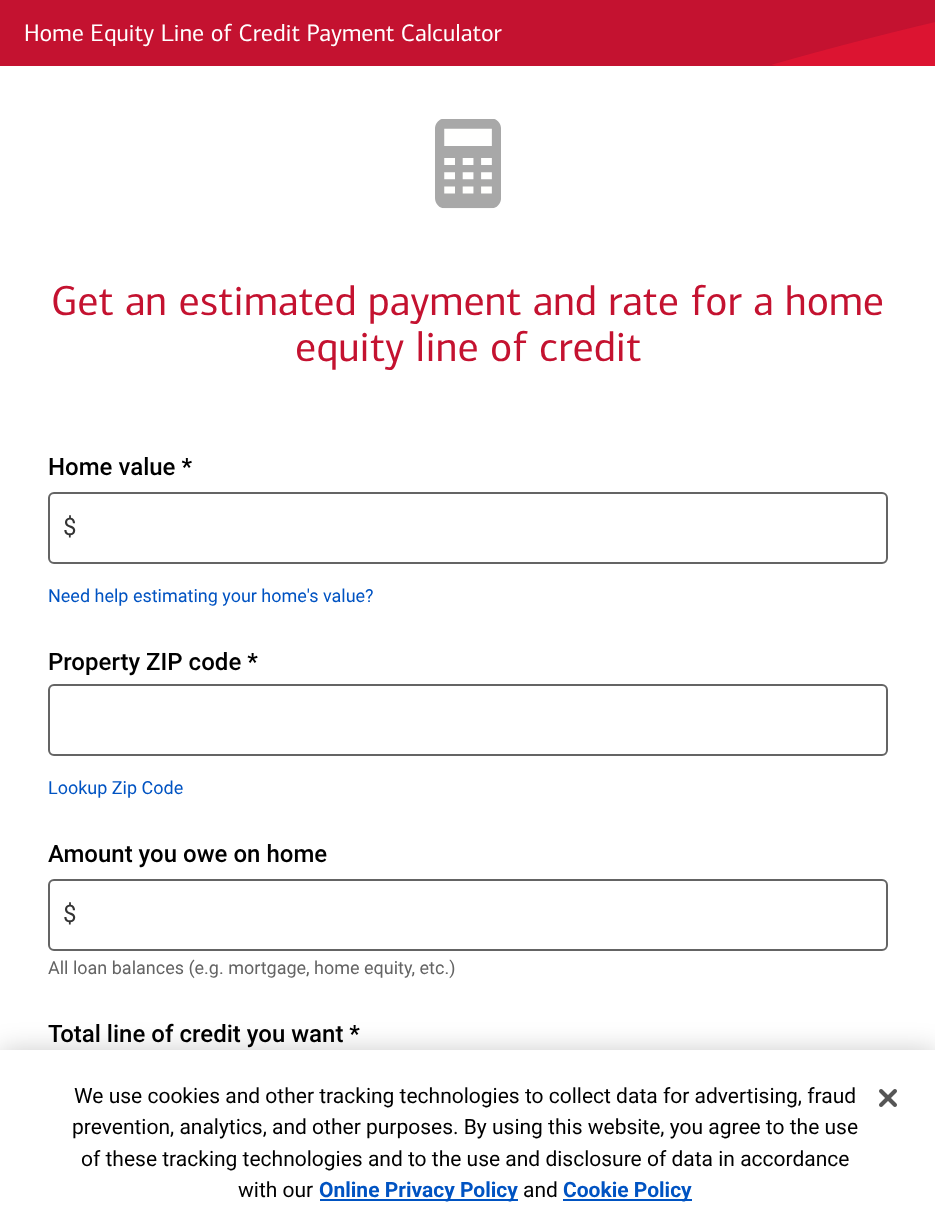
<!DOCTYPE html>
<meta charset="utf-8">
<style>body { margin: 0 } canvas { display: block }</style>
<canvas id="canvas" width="935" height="1221"></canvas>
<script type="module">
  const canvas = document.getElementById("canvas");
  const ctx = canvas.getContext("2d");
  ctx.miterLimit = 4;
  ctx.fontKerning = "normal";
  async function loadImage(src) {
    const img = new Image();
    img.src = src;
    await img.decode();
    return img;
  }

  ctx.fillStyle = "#ffffff";
  ctx.fillRect(0, 0, 935, 1221);
  ctx.fillStyle = "#c41230";
  ctx.fillRect(0, 0, 935, 66);
  ctx.drawImage(await loadImage("img1.png"), 772, 22, 163, 44);
  ctx.font = "24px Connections";
  ctx.fillStyle = "#ffffff";
  ctx.fillText("Home Equity Line of Credit Payment Calculator", 24, 41);
  ctx.drawImage(await loadImage("img2.png"), 435, 119, 66, 90);
  ctx.font = "42px Connections";
  ctx.fillStyle = "#c41230";
  ctx.fillText("Get an estimated payment and rate for a home", 51, 315);
  ctx.fillText("equity line of credit", 295, 361);
  ctx.font = "500 24px Roboto";
  ctx.fillStyle = "#000000";
  ctx.fillText("Home value *", 48, 475);
  ctx.beginPath();
  ctx.roundRect(49, 493, 838, 70, 5);
  ctx.strokeStyle = "#646464";
  ctx.lineWidth = 2;
  ctx.stroke();
  ctx.font = "24px Roboto";
  ctx.fillStyle = "#333333";
  ctx.fillText("$", 63, 535);
  ctx.font = "18px Roboto";
  ctx.fillStyle = "#0053c2";
  ctx.fillText("Need help estimating your home's value?", 48, 602);
  ctx.font = "500 24px Roboto";
  ctx.fillStyle = "#000000";
  ctx.fillText("Property ZIP code *", 48, 670);
  ctx.beginPath();
  ctx.roundRect(49, 685, 838, 70, 5);
  ctx.stroke();
  ctx.font = "18px Roboto";
  ctx.fillStyle = "#0053c2";
  ctx.fillText("Lookup Zip Code", 48, 794);
  ctx.font = "500 24px Roboto";
  ctx.fillStyle = "#000000";
  ctx.fillText("Amount you owe on home", 48, 862);
  ctx.beginPath();
  ctx.roundRect(49, 880, 838, 70, 5);
  ctx.stroke();
  ctx.font = "24px Roboto";
  ctx.fillStyle = "#333333";
  ctx.fillText("$", 63, 922);
  ctx.font = "18px Roboto";
  ctx.fillStyle = "#646464";
  ctx.fillText("All loan balances (e.g. mortgage, home equity, etc.)", 48, 974);
  ctx.font = "500 24px Roboto";
  ctx.fillStyle = "#000000";
  ctx.fillText("Total line of credit you want *", 48, 1042);
  ctx.fillStyle = "rgba(0, 0, 0, 0.2)";
  ctx.filter = "blur(13.5px)";
  ctx.beginPath();
  ctx.rect(0, 1050, 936, 171);
  ctx.fill();
  ctx.filter = "none";
  ctx.fillStyle = "#ffffff";
  ctx.fillRect(0, 1050, 935, 171);
  ctx.font = "21px 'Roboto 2'";
  ctx.fillStyle = "#000000";
  ctx.fillText("We use cookies and other tracking technologies to collect data for advertising, fraud", 74, 1103);
  ctx.fillText("prevention, analytics, and other purposes. By using this website, you agree to the use", 72, 1134);
  ctx.fillText("of these tracking technologies and to the use and disclosure of data in accordance", 81, 1166);
  ctx.fillText("with our", 238, 1197);
  ctx.fillStyle = "#0053c2";
  ctx.fillRect(320, 1199, 198, 2);
  ctx.font = "bold 21px Roboto";
  ctx.fillText("Online Privacy Policy", 319, 1197);
  ctx.font = "21px 'Roboto 2'";
  ctx.fillStyle = "#000000";
  ctx.fillText("and", 523, 1197);
  ctx.fillStyle = "#0053c2";
  ctx.fillRect(563, 1199, 129, 2);
  ctx.font = "bold 21px Roboto";
  ctx.fillText("Cookie Policy", 563, 1197);
  ctx.drawImage(await loadImage("img3.png"), 879, 1089, 18, 18);
</script>
